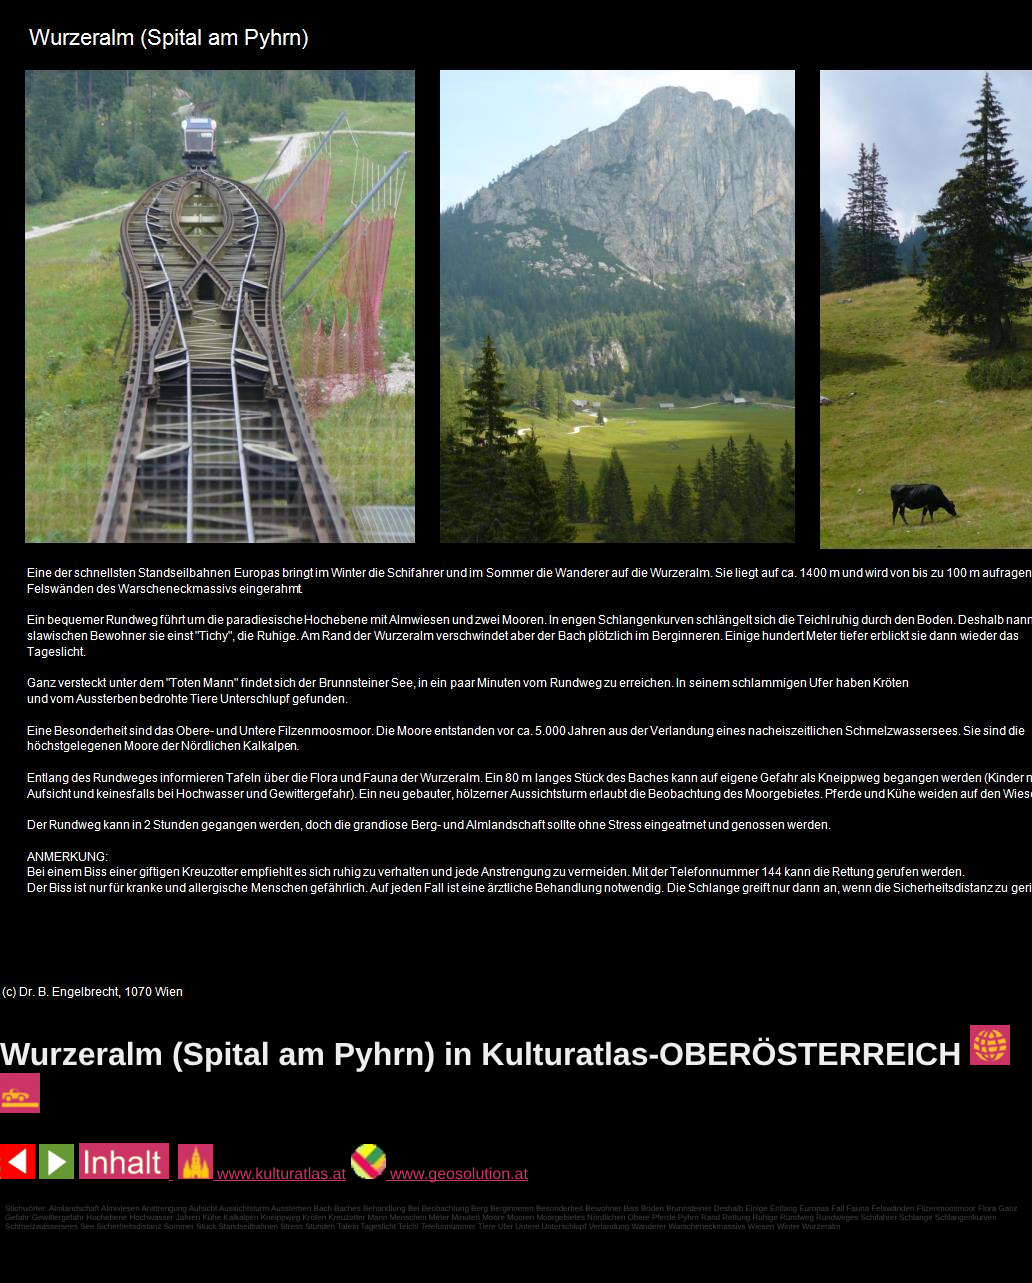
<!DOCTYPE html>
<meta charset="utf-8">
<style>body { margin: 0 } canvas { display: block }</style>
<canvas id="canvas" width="1032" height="1283"></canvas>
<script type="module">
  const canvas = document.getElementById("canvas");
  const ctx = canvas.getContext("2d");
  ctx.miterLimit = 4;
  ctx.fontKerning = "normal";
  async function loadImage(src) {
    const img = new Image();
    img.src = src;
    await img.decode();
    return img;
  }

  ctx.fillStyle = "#000000";
  ctx.fillRect(0, 0, 1032, 1283);
  ctx.drawImage(await loadImage("img1.png"), 0, 16, 1032, 984);
  ctx.font = "bold 32px Liberation Sans";
  ctx.fillStyle = "#eeeeee";
  ctx.fillText("Wurzeralm (Spital am Pyhrn) in Kulturatlas-OBERÖSTERREICH", 0, 1065);
  ctx.drawImage(await loadImage("img2.png"), 970, 1025, 40, 40);
  ctx.drawImage(await loadImage("img3.png"), 0, 1073, 40, 40);
  ctx.drawImage(await loadImage("img4.png"), 0, 1144, 35, 35);
  ctx.drawImage(await loadImage("img5.png"), 39, 1144, 35, 35);
  ctx.drawImage(await loadImage("img6.png"), 79, 1143, 90, 36);
  ctx.fillStyle = "#cc3366";
  ctx.fillRect(169, 1180, 4, 1);
  ctx.drawImage(await loadImage("img7.png"), 178, 1144, 35, 35);
  ctx.font = "16px Liberation Sans";
  ctx.fillText("www.kulturatlas.at", 217, 1179);
  ctx.fillRect(213, 1180, 133, 1);
  ctx.drawImage(await loadImage("img8.png"), 351, 1144, 35, 35);
  ctx.fillRect(386, 1180, 142, 1);
  ctx.fillText("www.geosolution.at", 390, 1179);
  ctx.font = "8px Liberation Sans";
  ctx.fillStyle = "#444444";
  ctx.fillText("Stichwörter: Almlandschaft Almwiesen Anstrengung Aufsicht Aussichtsturm Aussterben Bach Baches Behandlung Bei Beobachtung Berg Berginneren Besonderheit Bewohner Biss Boden Brunnsteiner Deshalb Einige Entlang Europas Fall Fauna Felswänden Filzenmoosmoor Flora Ganz", 5, 1211);
  ctx.fillText("Gefahr Gewittergefahr Hochebene Hochwasser Jahren Kühe Kalkalpen Kneippweg Kröten Kreuzotter Mann Menschen Meter Minuten Moore Mooren Moorgebietes Nördlichen Obere Pferde Pyhrn Rand Rettung Ruhige Rundweg Rundweges Schifahrer Schlange Schlangenkurven", 5, 1220);
  ctx.fillText("Schmelzwassersees See Sicherheitsdistanz Sommer Stück Standseilbahnen Stress Stunden Tafeln Tageslicht Teichl Telefonnummer Tiere Ufer Untere Unterschlupf Verlandung Wanderer Warscheneckmassivs Wiesen Winter Wurzeralm", 5, 1229);
</script>
